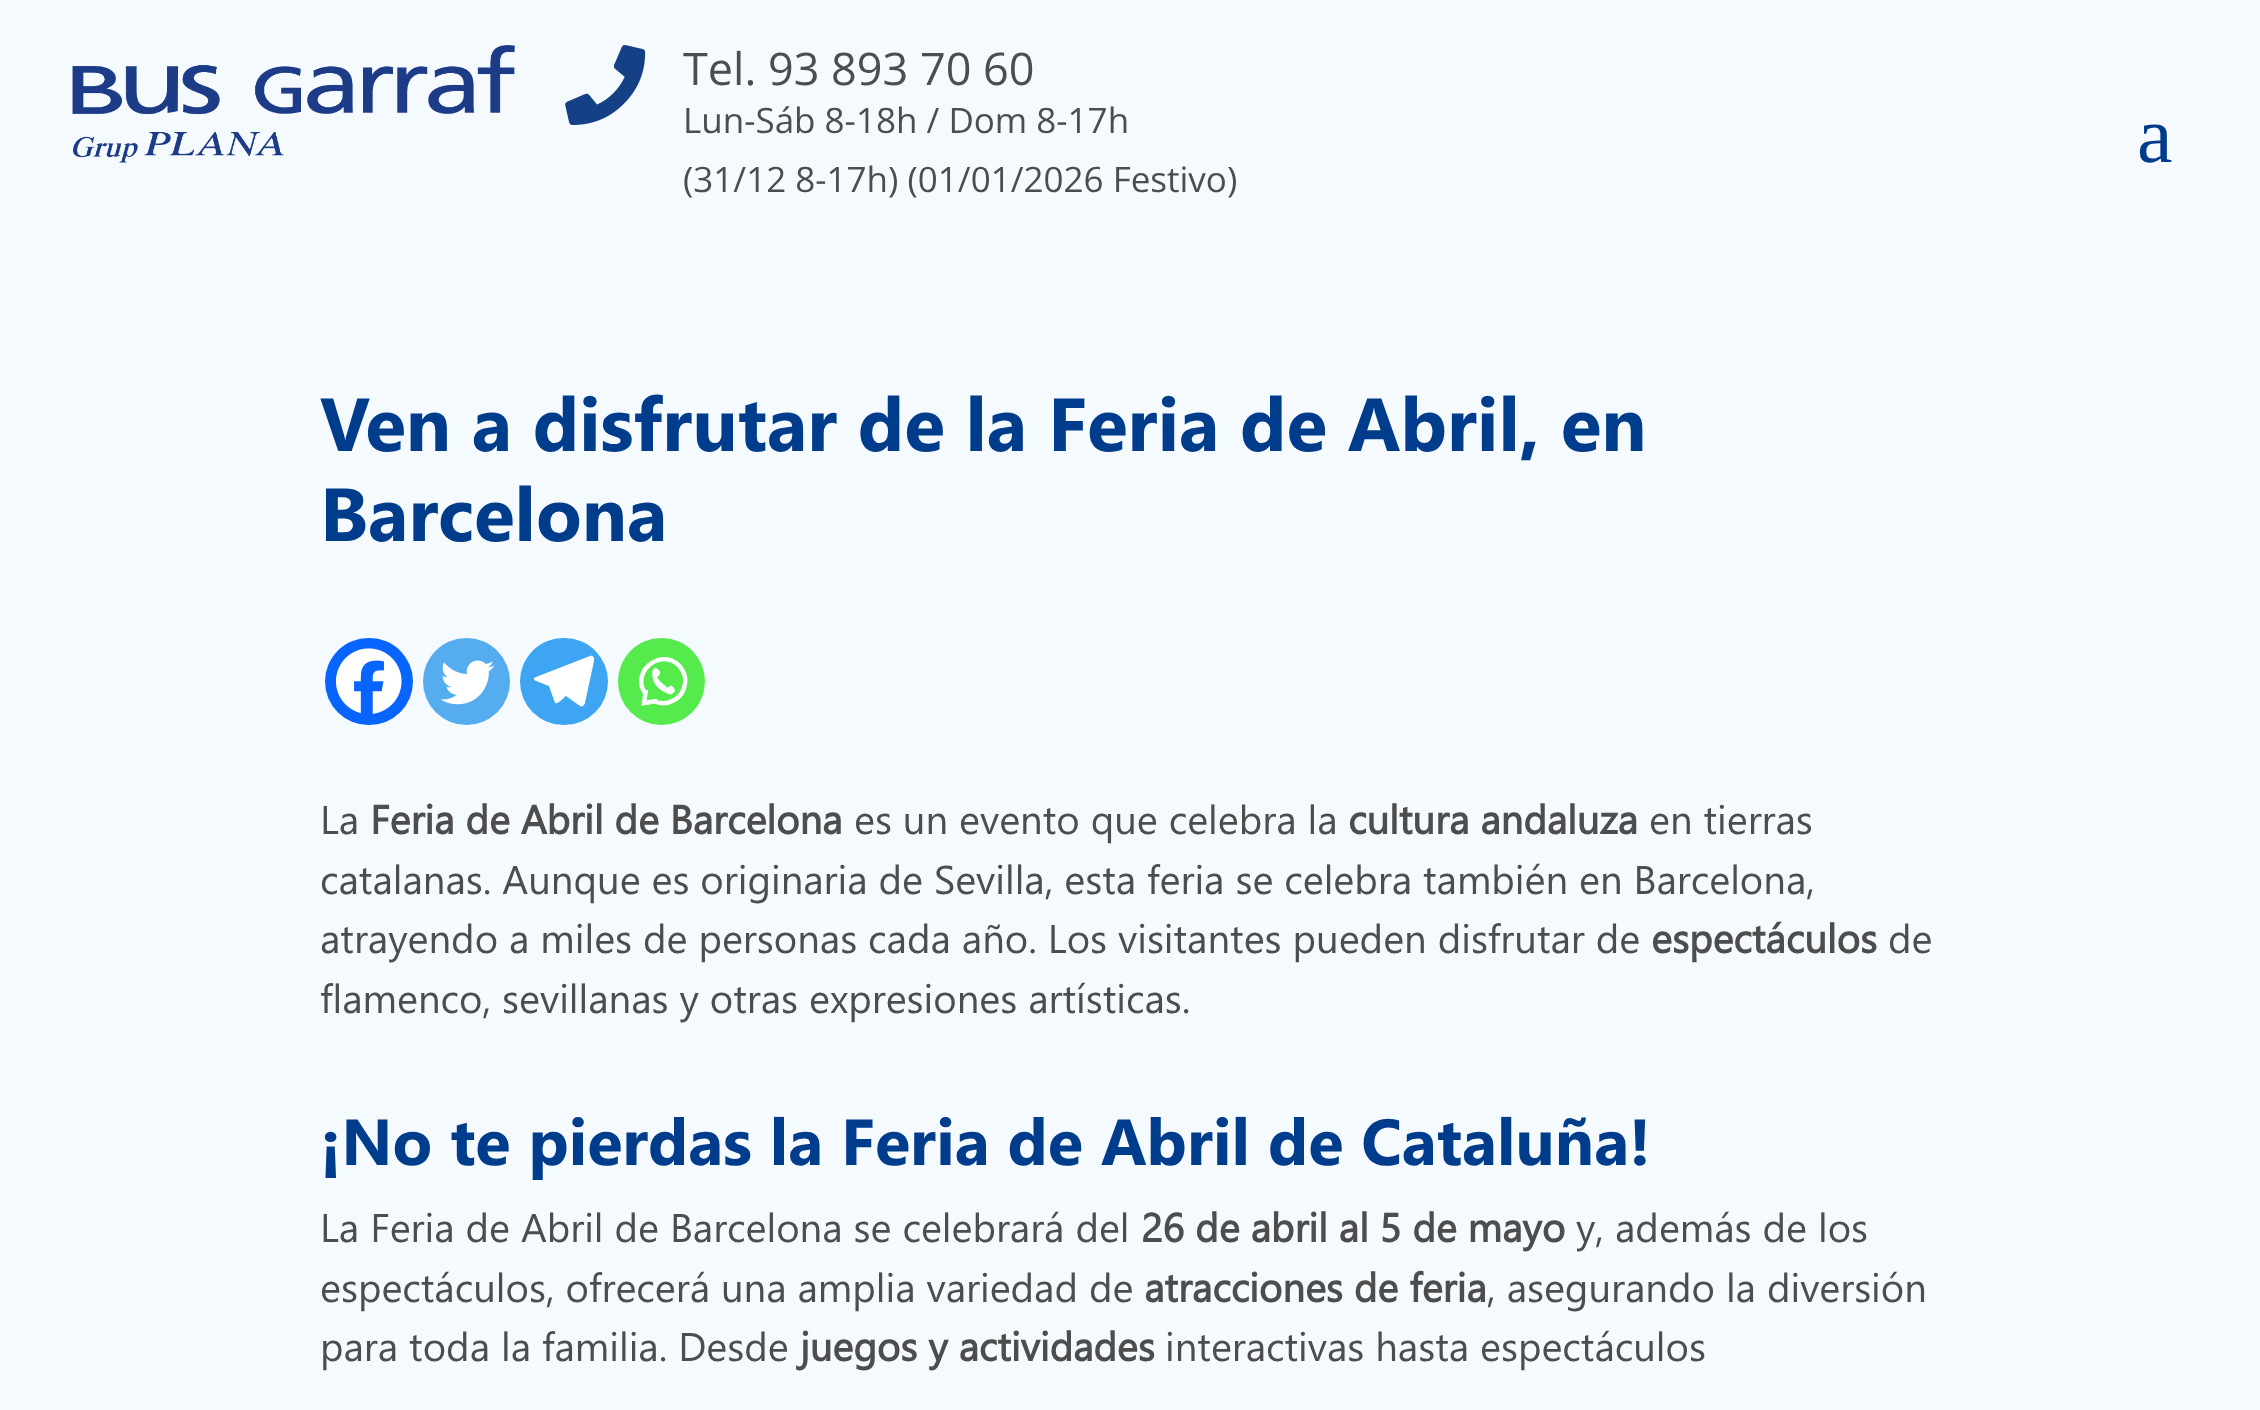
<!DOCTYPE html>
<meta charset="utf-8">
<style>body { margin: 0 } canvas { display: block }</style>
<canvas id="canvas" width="2260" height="1410"></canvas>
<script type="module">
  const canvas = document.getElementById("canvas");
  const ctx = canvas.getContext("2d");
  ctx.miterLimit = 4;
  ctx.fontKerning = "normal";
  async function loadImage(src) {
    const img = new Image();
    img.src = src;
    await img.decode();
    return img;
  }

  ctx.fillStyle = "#f5faff";
  ctx.fillRect(0, 0, 2260, 1410);
  ctx.drawImage(await loadImage("img1.png"), 72, 45, 443, 118);
  ctx.drawImage(await loadImage("img2.png"), 565, 45, 81, 80);
  ctx.font = "45px Open Sans";
  ctx.fillStyle = "#4d4d4d";
  ctx.fillText("Tel. 93 893 70 60", 683, 85);
  ctx.font = "35px Open Sans";
  ctx.fillText("Lun-Sáb 8-18h / Dom 8-17h", 683, 133);
  ctx.fillText("(31/12 8-17h) (01/01/2026 Festivo)", 683, 192);
  ctx.font = "80px Liberation Serif";
  ctx.fillStyle = "#003c8c";
  ctx.fillText("a", 2137, 162);
  ctx.font = "bold 75px Segoe UI";
  ctx.fillText("Ven a disfrutar de la Feria de Abril, en", 320, 451);
  ctx.fillText("Barcelona", 320, 541);
  ctx.fillStyle = "#0765fe";
  ctx.beginPath();
  ctx.roundRect(325, 638, 88, 87, 43.5);
  ctx.fill();
  ctx.drawImage(await loadImage("img3.png"), 335, 648, 67, 66);
  ctx.fillStyle = "#55acee";
  ctx.beginPath();
  ctx.arc(466.5, 681.5, 43.5, 0, Math.PI * 2);
  ctx.fill();
  ctx.drawImage(await loadImage("img4.png"), 440, 660, 55, 45);
  ctx.fillStyle = "#3da5f1";
  ctx.beginPath();
  ctx.roundRect(520, 638, 88, 87, 43.5);
  ctx.fill();
  ctx.fillStyle = "#ffffff";
  ctx.beginPath();
  ctx.moveTo(590, 656);
  ctx.lineTo(536, 677);
  ctx.bezierCurveTo(533, 678, 533, 680, 536, 681);
  ctx.lineTo(549, 686);
  ctx.lineTo(555, 703);
  ctx.bezierCurveTo(558, 705, 564, 697, 566, 696);
  ctx.lineTo(580, 706);
  ctx.bezierCurveTo(582, 707, 584, 706, 585, 703);
  ctx.lineTo(594, 661);
  ctx.bezierCurveTo(595, 657, 592, 655, 590, 656);
  ctx.closePath();
  ctx.fill();
  ctx.fillStyle = "#55eb4c";
  ctx.beginPath();
  ctx.arc(661.5, 681.5, 43.5, 0, Math.PI * 2);
  ctx.fill();
  ctx.beginPath();
  ctx.moveTo(656, 702);
  ctx.bezierCurveTo(667.5, 706, 680.5, 699.5, 684, 688);
  ctx.bezierCurveTo(686, 682, 685.5, 675, 682, 669.5);
  ctx.bezierCurveTo(666.5, 644.5, 628.5, 669.5, 645.5, 694);
  ctx.moveTo(646, 690);
  ctx.lineTo(644, 703);
  ctx.lineTo(657, 701);
  ctx.strokeStyle = "#ffffff";
  ctx.lineWidth = 4.4;
  ctx.stroke();
  ctx.fillStyle = "#ffffff";
  ctx.beginPath();
  ctx.moveTo(652.5, 670.5);
  ctx.bezierCurveTo(651, 682, 657, 690, 670, 694.5);
  ctx.bezierCurveTo(681, 692, 670, 681, 668, 688);
  ctx.bezierCurveTo(662, 683.5, 658.5, 680, 657, 677);
  ctx.bezierCurveTo(665.5, 672.5, 654.5, 666, 654.5, 668);
  ctx.fill();
  ctx.font = "40px Segoe UI";
  ctx.fillStyle = "#4d4d4d";
  ctx.fillText("La", 320, 834);
  ctx.font = "bold 40px 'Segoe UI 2'";
  ctx.fillText("Feria de Abril de Barcelona", 370, 834);
  ctx.font = "40px Segoe UI";
  ctx.fillText("es un evento que celebra la", 854, 834);
  ctx.font = "bold 40px 'Segoe UI 2'";
  ctx.fillText("cultura andaluza", 1348, 834);
  ctx.font = "40px Segoe UI";
  ctx.fillText("en tierras", 1649, 834);
  ctx.fillText("catalanas. Aunque es originaria de Sevilla, esta feria se celebra también en Barcelona,", 320, 894);
  ctx.fillText("atrayendo a miles de personas cada año. Los visitantes pueden disfrutar de", 320, 953);
  ctx.font = "bold 40px 'Segoe UI 2'";
  ctx.fillText("espectáculos", 1651, 953);
  ctx.font = "40px Segoe UI";
  ctx.fillText("de", 1888, 953);
  ctx.fillText("flamenco, sevillanas y otras expresiones artísticas.", 320, 1013);
  ctx.font = "bold 65px Segoe UI";
  ctx.fillStyle = "#003c8c";
  ctx.fillText("¡No te pierdas la Feria de Abril de Cataluña!", 320, 1165);
  ctx.font = "40px Segoe UI";
  ctx.fillStyle = "#4d4d4d";
  ctx.fillText("La Feria de Abril de Barcelona se celebrará del", 320, 1242);
  ctx.font = "bold 40px 'Segoe UI 2'";
  ctx.fillText("26 de abril al 5 de mayo", 1141, 1242);
  ctx.font = "40px Segoe UI";
  ctx.fillText("y, además de los", 1576, 1242);
  ctx.fillText("espectáculos, ofrecerá una amplia variedad de", 320, 1302);
  ctx.font = "bold 40px 'Segoe UI 2'";
  ctx.fillText("atracciones de feria", 1144, 1302);
  ctx.font = "40px Segoe UI";
  ctx.fillText(", asegurando la diversión", 1487, 1302);
  ctx.fillText("para toda la familia. Desde", 320, 1361);
  ctx.font = "bold 40px 'Segoe UI 2'";
  ctx.fillText("juegos y actividades", 800, 1361);
  ctx.font = "40px Segoe UI";
  ctx.fillText("interactivas hasta espectáculos", 1165, 1361);
</script>
